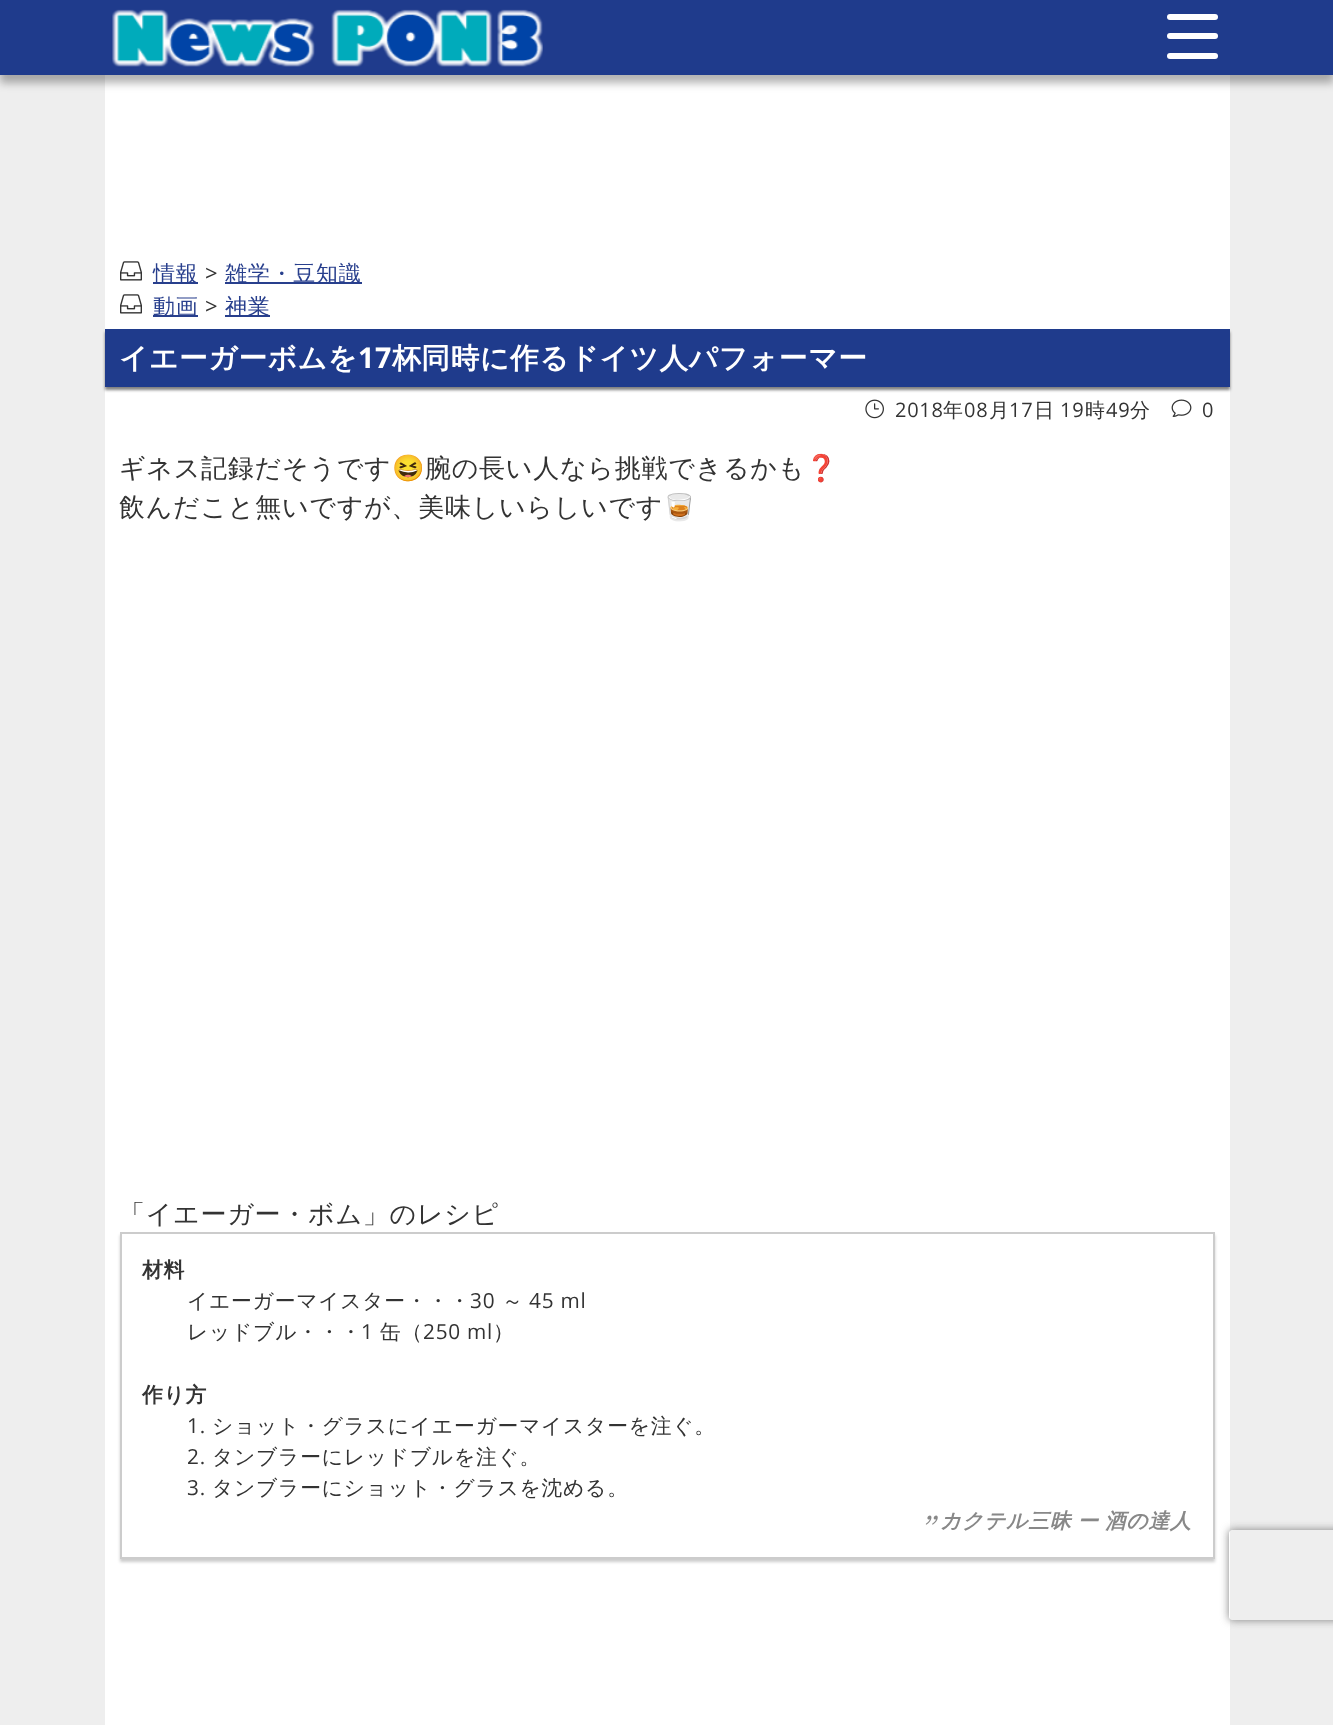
<!DOCTYPE html>
<meta charset="utf-8">
<style>body { margin: 0 } canvas { display: block }</style>
<canvas id="canvas" width="1333" height="1725"></canvas>
<script type="module">
  const canvas = document.getElementById("canvas");
  const ctx = canvas.getContext("2d");
  ctx.miterLimit = 4;
  ctx.fontKerning = "normal";
  async function loadImage(src) {
    const img = new Image();
    img.src = src;
    await img.decode();
    return img;
  }

  ctx.fillStyle = "#eeeeee";
  ctx.fillRect(0, 0, 1333, 1725);
  ctx.fillStyle = "#ffffff";
  ctx.fillRect(105, 75, 1125, 1650);
  ctx.fillStyle = "rgba(0, 0, 0, 0.3)";
  ctx.filter = "blur(4px)";
  ctx.beginPath();
  ctx.rect(0, 8, 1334, 75);
  ctx.fill();
  ctx.filter = "none";
  ctx.fillStyle = "#1f3b8c";
  ctx.fillRect(0, 0, 1333, 75);
  ctx.drawImage(await loadImage("img1.png"), 112, 9, 431, 58);
  ctx.fillStyle = "#ffffff";
  ctx.beginPath();
  ctx.roundRect(1167, 14, 51, 6, 3);
  ctx.fill();
  ctx.beginPath();
  ctx.roundRect(1167, 33, 51, 6, 3);
  ctx.fill();
  ctx.beginPath();
  ctx.roundRect(1167, 53, 51, 6, 3);
  ctx.fill();
  ctx.drawImage(await loadImage("img2.png"), 120, 261, 22, 20);
  ctx.fillStyle = "#283f8d";
  ctx.fillRect(153, 282, 45, 2);
  ctx.letterSpacing = "0.75px";
  ctx.font = "500 22px WenQuanYi Zen Hei";
  ctx.fillText("情報", 153, 281);
  ctx.font = "22px Open Sans";
  ctx.fillStyle = "#333333";
  ctx.fillText(">", 205, 281);
  ctx.fillStyle = "#283f8d";
  ctx.fillRect(225, 282, 137, 2);
  ctx.font = "500 22px WenQuanYi Zen Hei";
  ctx.fillText("雑学・豆知識", 225, 281);
  ctx.drawImage(await loadImage("img2.png"), 120, 294, 22, 20);
  ctx.fillRect(153, 315, 45, 2);
  ctx.fillText("動画", 153, 314);
  ctx.font = "22px Open Sans";
  ctx.fillStyle = "#333333";
  ctx.fillText(">", 205, 314);
  ctx.fillStyle = "#283f8d";
  ctx.fillRect(225, 315, 45, 2);
  ctx.font = "500 22px WenQuanYi Zen Hei";
  ctx.fillText("神業", 225, 314);
  ctx.fillStyle = "rgba(0, 0, 0, 0.5)";
  ctx.filter = "blur(1.5px)";
  ctx.beginPath();
  ctx.rect(105, 332, 1125, 58);
  ctx.fill();
  ctx.filter = "none";
  ctx.fillStyle = "#1f3b8c";
  ctx.fillRect(105, 329, 1125, 58);
  ctx.font = "bold 28.6px WenQuanYi Zen Hei";
  ctx.fillStyle = "#ffffff";
  ctx.fillText("イエーガーボムを", 119, 368);
  ctx.font = "bold 28.6px Open Sans";
  ctx.fillText("17", 358, 368);
  ctx.font = "bold 28.6px WenQuanYi Zen Hei";
  ctx.fillText("杯同時に作るドイツ人パフォーマー", 392, 368);
  ctx.drawImage(await loadImage("img3.png"), 865, 399, 19, 20);
  ctx.font = "20px Open Sans";
  ctx.fillStyle = "#333333";
  ctx.fillText("2018", 895, 417);
  ctx.font = "500 20px WenQuanYi Zen Hei";
  ctx.fillText("年", 943, 417);
  ctx.font = "20px Open Sans";
  ctx.fillText("08", 964, 417);
  ctx.font = "500 20px WenQuanYi Zen Hei";
  ctx.fillText("月", 989, 417);
  ctx.font = "20px Open Sans";
  ctx.fillText("17", 1009, 417);
  ctx.font = "500 20px WenQuanYi Zen Hei";
  ctx.fillText("日", 1034, 417);
  ctx.font = "20px Open Sans";
  ctx.fillText("19", 1060, 417);
  ctx.font = "500 20px WenQuanYi Zen Hei";
  ctx.fillText("時", 1085, 417);
  ctx.font = "20px Open Sans";
  ctx.fillText("49", 1106, 417);
  ctx.font = "500 20px WenQuanYi Zen Hei";
  ctx.fillText("分", 1130, 417);
  ctx.drawImage(await loadImage("img4.png"), 1171, 399, 21, 18);
  ctx.font = "20px Open Sans";
  ctx.fillText("0", 1202, 417);
  ctx.font = "500 26px WenQuanYi Zen Hei";
  ctx.fillText("ギネス記録だそうです", 119, 477);
  ctx.font = "26px Noto Color Emoji";
  ctx.fillText("😆", 392, 477);
  ctx.font = "500 26px WenQuanYi Zen Hei";
  ctx.fillText("腕の長い人なら挑戦できるかも", 425, 477);
  ctx.font = "26px Noto Color Emoji";
  ctx.fillText("❓", 805, 477);
  ctx.font = "500 26px WenQuanYi Zen Hei";
  ctx.fillText("飲んだこと無いですが、美味しいらしいです", 119, 516);
  ctx.font = "26px Noto Color Emoji";
  ctx.fillText("🥃", 663, 516);
  ctx.font = "500 26px WenQuanYi Zen Hei";
  ctx.fillText("「イエーガー・ボム」のレシピ", 119, 1223);
  ctx.save();
  ctx.beginPath();
  ctx.moveTo(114, 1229);
  ctx.lineTo(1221, 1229);
  ctx.lineTo(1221, 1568);
  ctx.lineTo(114, 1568);
  ctx.closePath();
  ctx.moveTo(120, 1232);
  ctx.lineTo(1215, 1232);
  ctx.lineTo(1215, 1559);
  ctx.lineTo(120, 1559);
  ctx.closePath();
  ctx.clip("evenodd");
  ctx.fillStyle = "rgba(0, 0, 0, 0.2)";
  ctx.filter = "blur(1.5px)";
  ctx.beginPath();
  ctx.rect(120, 1235, 1095, 327);
  ctx.fill();
  ctx.filter = "none";
  ctx.restore();
  ctx.strokeStyle = "#cccccc";
  ctx.lineWidth = 2;
  ctx.strokeRect(121, 1233, 1093, 325);
  ctx.font = "bold 20.8px WenQuanYi Zen Hei";
  ctx.fillText("材料", 142, 1277);
  ctx.font = "500 20.8px WenQuanYi Zen Hei";
  ctx.fillText("イエーガーマイスター・・・", 187, 1308);
  ctx.font = "20.8px Open Sans";
  ctx.fillText("30", 470, 1308);
  ctx.font = "500 20.8px WenQuanYi Zen Hei";
  ctx.fillText("～", 502, 1308);
  ctx.font = "20.8px Open Sans";
  ctx.fillText("45 ml", 529, 1308);
  ctx.font = "500 20.8px WenQuanYi Zen Hei";
  ctx.fillText("レッドブル・・・", 187, 1339);
  ctx.font = "20.8px Open Sans";
  ctx.fillText("1", 361, 1339);
  ctx.font = "500 20.8px WenQuanYi Zen Hei";
  ctx.fillText("缶（", 380, 1339);
  ctx.font = "20.8px Open Sans";
  ctx.fillText("250 ml", 423, 1339);
  ctx.font = "500 20.8px WenQuanYi Zen Hei";
  ctx.fillText("）", 493, 1339);
  ctx.font = "bold 20.8px WenQuanYi Zen Hei";
  ctx.fillText("作り方", 142, 1402);
  ctx.font = "20.8px Open Sans";
  ctx.fillText("1.", 187, 1433);
  ctx.font = "500 20.8px WenQuanYi Zen Hei";
  ctx.fillText("ショット・グラスにイエーガーマイスターを注ぐ。", 212, 1433);
  ctx.font = "20.8px Open Sans";
  ctx.fillText("2.", 187, 1464);
  ctx.font = "500 20.8px WenQuanYi Zen Hei";
  ctx.fillText("タンブラーにレッドブルを注ぐ。", 212, 1464);
  ctx.font = "20.8px Open Sans";
  ctx.fillText("3.", 187, 1495);
  ctx.font = "500 20.8px WenQuanYi Zen Hei";
  ctx.fillText("タンブラーにショット・グラスを沈める。", 212, 1495);
  ctx.drawImage(await loadImage("img5.png"), 925, 1515, 13, 10);
  ctx.wordSpacing = "-1px";
  ctx.font = "italic bold 20.8px WenQuanYi Zen Hei";
  ctx.fillStyle = "#888888";
  ctx.fillText("カクテル三昧 ー 酒の達人", 940, 1528);
  ctx.save();
  ctx.beginPath();
  ctx.moveTo(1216, 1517);
  ctx.lineTo(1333, 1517);
  ctx.lineTo(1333, 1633);
  ctx.lineTo(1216, 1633);
  ctx.closePath();
  ctx.moveTo(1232, 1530);
  ctx.lineTo(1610, 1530);
  ctx.bezierCurveTo(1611.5, 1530, 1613, 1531.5, 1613, 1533);
  ctx.lineTo(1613, 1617);
  ctx.bezierCurveTo(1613, 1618.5, 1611.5, 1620, 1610, 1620);
  ctx.lineTo(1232, 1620);
  ctx.bezierCurveTo(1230.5, 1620, 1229, 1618.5, 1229, 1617);
  ctx.lineTo(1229, 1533);
  ctx.bezierCurveTo(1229, 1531.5, 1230.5, 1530, 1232, 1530);
  ctx.closePath();
  ctx.clip("evenodd");
  ctx.fillStyle = "#808080";
  ctx.filter = "blur(4px)";
  ctx.beginPath();
  ctx.roundRect(1229, 1530, 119, 90, 3);
  ctx.fill();
  ctx.filter = "none";
  ctx.restore();
</script>
